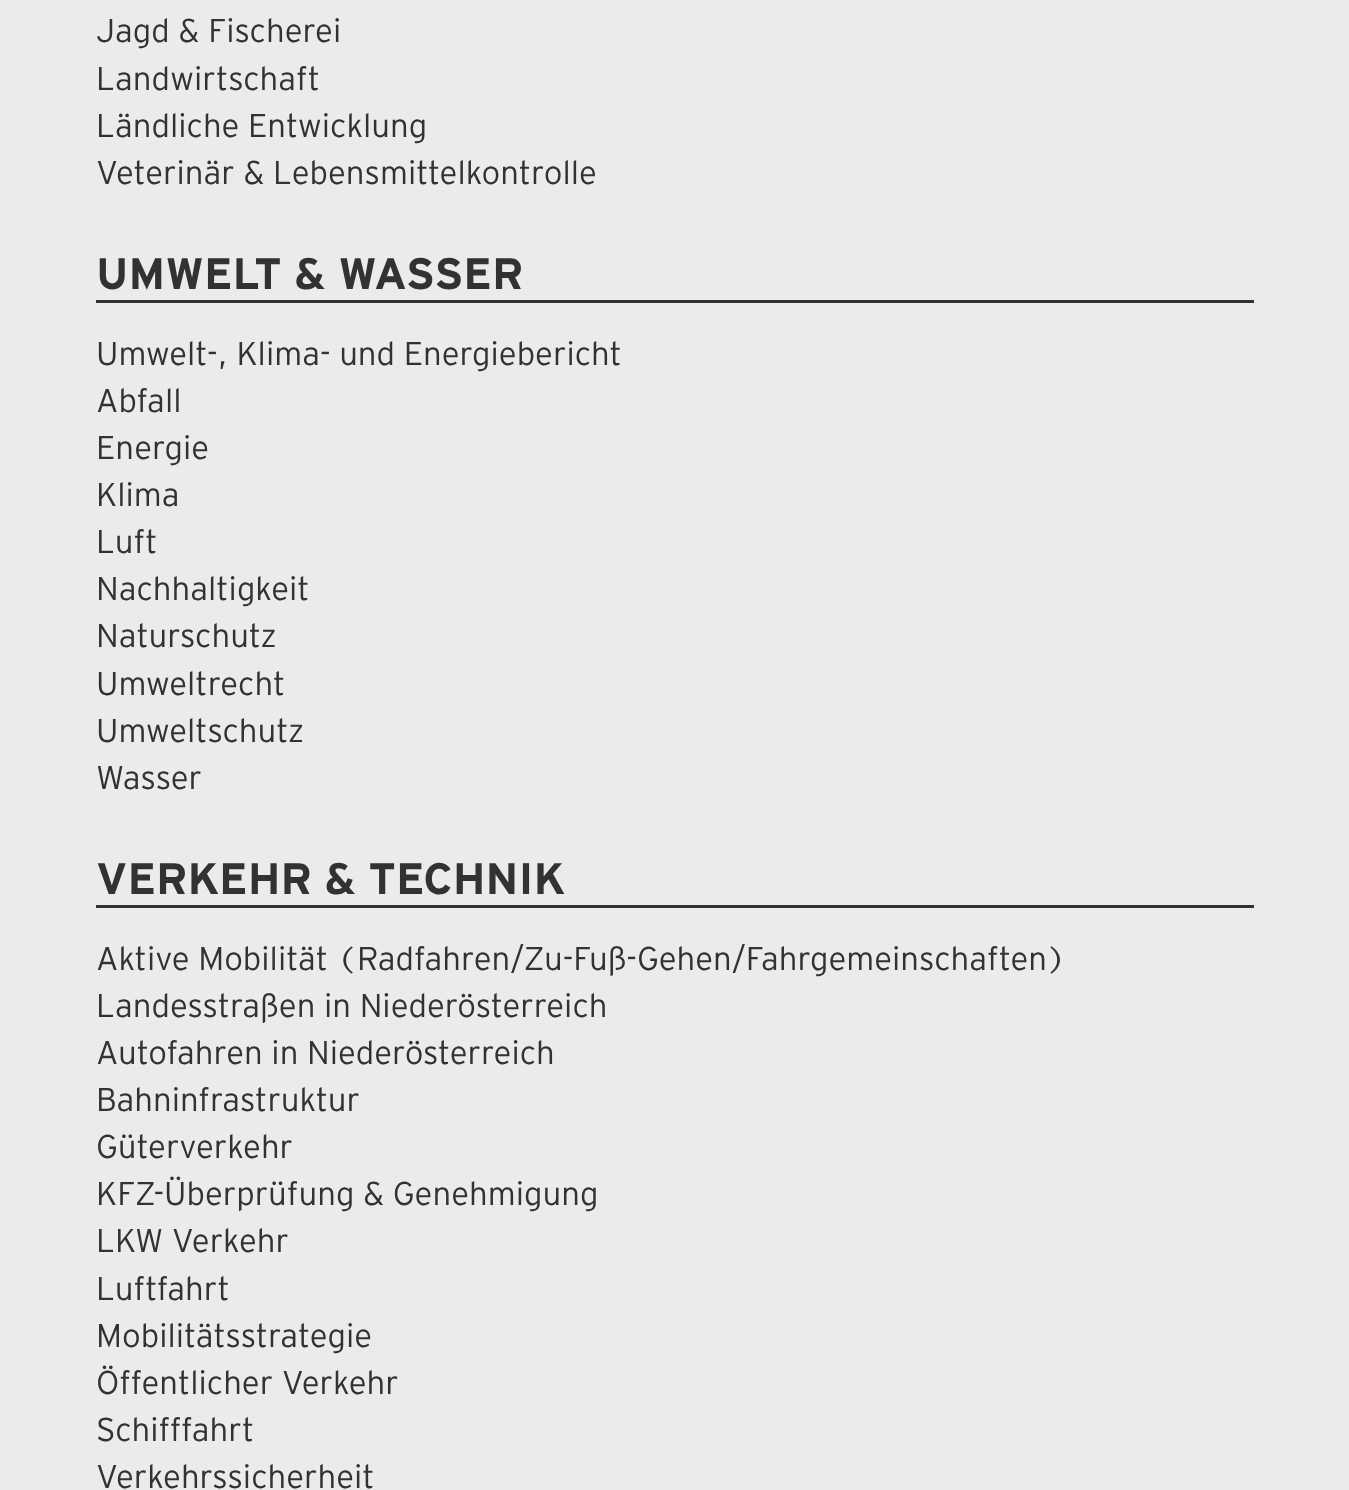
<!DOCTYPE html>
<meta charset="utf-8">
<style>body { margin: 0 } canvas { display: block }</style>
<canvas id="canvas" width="1349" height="1490"></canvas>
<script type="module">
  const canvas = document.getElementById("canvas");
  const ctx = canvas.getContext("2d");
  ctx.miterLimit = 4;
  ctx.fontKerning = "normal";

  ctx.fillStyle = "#ebebeb";
  ctx.fillRect(0, 0, 1349, 1490);
  ctx.font = "300 33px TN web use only";
  ctx.fillStyle = "#323232";
  ctx.fillText("Jagd & Fischerei", 96, 42);
  ctx.fillText("Landwirtschaft", 96, 90);
  ctx.fillText("Ländliche Entwicklung", 96, 137);
  ctx.fillText("Veterinär & Lebensmittelkontrolle", 96, 184);
  ctx.fillRect(96, 300, 1158, 3);
  ctx.font = "bold 44px TN web use only";
  ctx.fillText("UMWELT & WASSER", 96, 289);
  ctx.font = "300 33px TN web use only";
  ctx.fillText("Umwelt-, Klima- und Energiebericht", 96, 365);
  ctx.fillText("Abfall", 96, 412);
  ctx.fillText("Energie", 96, 459);
  ctx.fillText("Klima", 96, 506);
  ctx.fillText("Luft", 96, 553);
  ctx.fillText("Nachhaltigkeit", 96, 600);
  ctx.fillText("Naturschutz", 96, 647);
  ctx.fillText("Umweltrecht", 96, 695);
  ctx.fillText("Umweltschutz", 96, 742);
  ctx.fillText("Wasser", 96, 789);
  ctx.fillRect(96, 905, 1158, 3);
  ctx.font = "bold 44px TN web use only";
  ctx.fillText("VERKEHR & TECHNIK", 96, 894);
  ctx.font = "300 33px TN web use only";
  ctx.fillText("Aktive Mobilität (Radfahren/Zu-Fuß-Gehen/Fahrgemeinschaften)", 96, 970);
  ctx.fillText("Landesstraßen in Niederösterreich", 96, 1017);
  ctx.fillText("Autofahren in Niederösterreich", 96, 1064);
  ctx.fillText("Bahninfrastruktur", 96, 1111);
  ctx.fillText("Güterverkehr", 96, 1158);
  ctx.fillText("KFZ-Überprüfung & Genehmigung", 96, 1205);
  ctx.fillText("LKW Verkehr", 96, 1252);
  ctx.fillText("Luftfahrt", 96, 1300);
  ctx.fillText("Mobilitätsstrategie", 96, 1347);
  ctx.fillText("Öffentlicher Verkehr", 96, 1394);
  ctx.fillText("Schifffahrt", 96, 1441);
  ctx.fillText("Verkehrssicherheit", 96, 1488);
</script>
